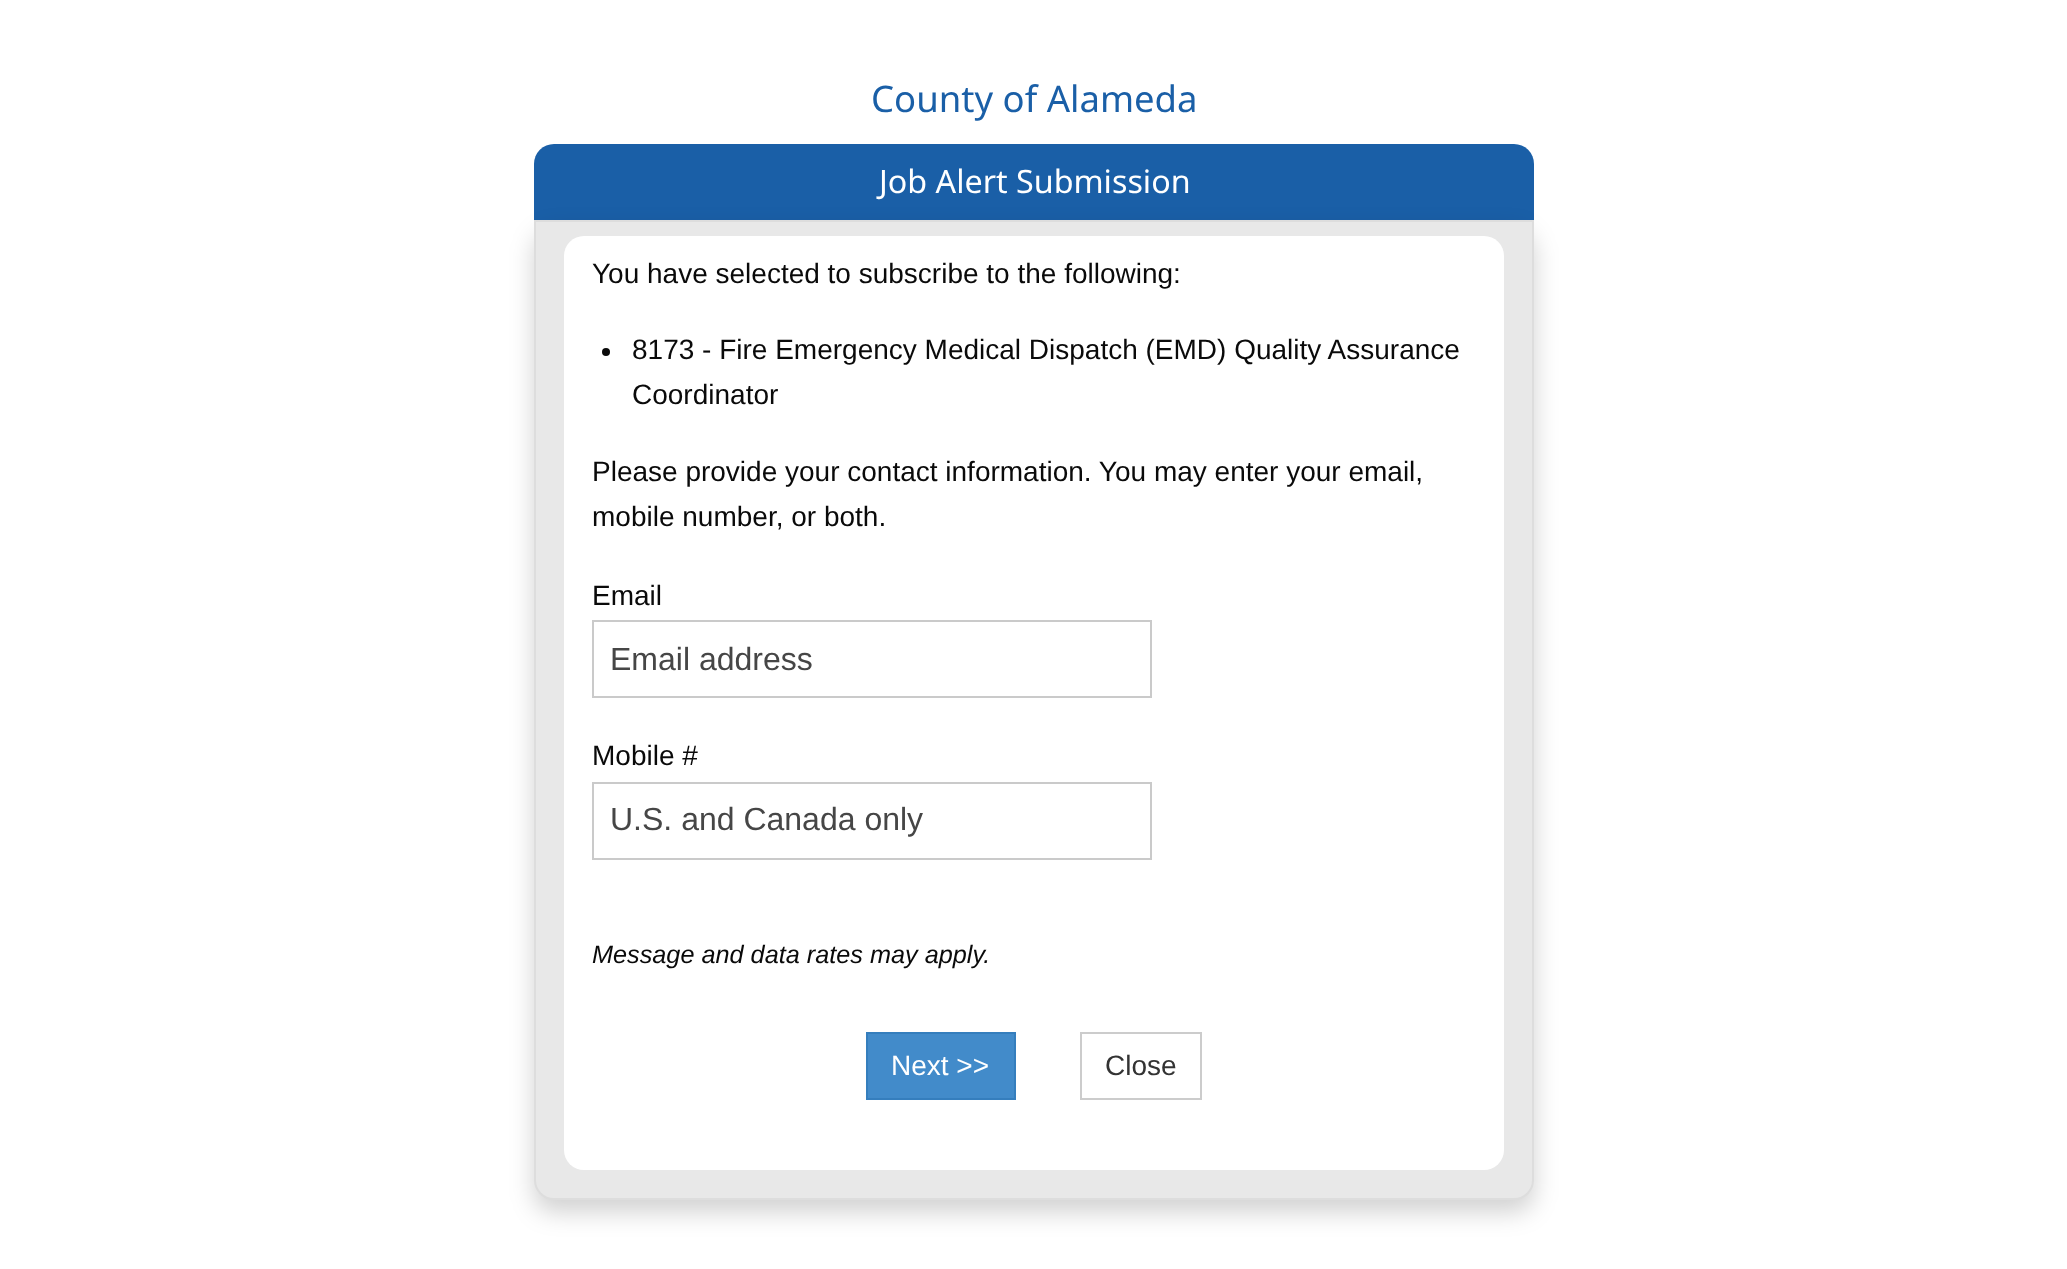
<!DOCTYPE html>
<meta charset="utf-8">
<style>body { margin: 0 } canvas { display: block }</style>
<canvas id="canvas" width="2067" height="1269"></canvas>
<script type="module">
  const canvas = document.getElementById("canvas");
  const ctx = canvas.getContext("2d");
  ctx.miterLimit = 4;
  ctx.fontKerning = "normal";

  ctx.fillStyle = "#ffffff";
  ctx.fillRect(0, 0, 2067, 1269);
  ctx.font = "36.5px Noto Sans";
  ctx.fillStyle = "#1a5fa7";
  ctx.fillText("County of Alameda", 871, 112);
  ctx.beginPath();
  ctx.roundRect(534, 144, 1000, 76, [20, 20, 0, 0]);
  ctx.fill();
  ctx.font = "32.25px Noto Sans";
  ctx.fillStyle = "#ffffff";
  ctx.fillText("Job Alert Submission", 879, 193);
  ctx.fillStyle = "rgba(0, 0, 0, 0.18)";
  ctx.filter = "blur(12px)";
  ctx.beginPath();
  ctx.roundRect(534, 232, 1000, 980, 20);
  ctx.fill();
  ctx.filter = "none";
  ctx.fillStyle = "#e8e8e8";
  ctx.beginPath();
  ctx.roundRect(535, 221, 998, 978, [0, 0, 19, 19]);
  ctx.fill();
  ctx.strokeStyle = "#dddddd";
  ctx.lineWidth = 2;
  ctx.stroke();
  ctx.fillStyle = "#ffffff";
  ctx.beginPath();
  ctx.roundRect(564, 236, 940, 934, 20);
  ctx.fill();
  ctx.font = "28px Liberation Sans";
  ctx.fillStyle = "#0a0a0a";
  ctx.fillText("You have selected to subscribe to the following:", 592, 283);
  ctx.beginPath();
  ctx.arc(606, 352, 4, 0, Math.PI * 2);
  ctx.fill();
  ctx.fillText("8173 - Fire Emergency Medical Dispatch (EMD) Quality Assurance", 632, 359);
  ctx.fillText("Coordinator", 632, 404);
  ctx.fillText("Please provide your contact information. You may enter your email,", 592, 481);
  ctx.fillText("mobile number, or both.", 592, 526);
  ctx.fillText("Email", 592, 605);
  ctx.strokeStyle = "#cacaca";
  ctx.strokeRect(593, 621, 558, 76);
  ctx.font = "32px Liberation Sans";
  ctx.fillStyle = "#464646";
  ctx.fillText("Email address", 610, 670);
  ctx.font = "28px Liberation Sans";
  ctx.fillStyle = "#0a0a0a";
  ctx.fillText("Mobile #", 592, 765);
  ctx.strokeRect(593, 783, 558, 76);
  ctx.font = "32px Liberation Sans";
  ctx.fillStyle = "#464646";
  ctx.fillText("U.S. and Canada only", 610, 830);
  ctx.font = "italic 25.25px Liberation Sans";
  ctx.fillStyle = "#0a0a0a";
  ctx.fillText("Message and data rates may apply.", 592, 963);
  ctx.fillStyle = "#428bca";
  ctx.beginPath();
  ctx.rect(867, 1033, 148, 66);
  ctx.fill();
  ctx.strokeStyle = "#357ebd";
  ctx.stroke();
  ctx.font = "28px Liberation Sans";
  ctx.fillStyle = "#ffffff";
  ctx.fillText("Next >>", 891, 1075);
  ctx.strokeStyle = "#cccccc";
  ctx.strokeRect(1081, 1033, 120, 66);
  ctx.fillStyle = "#333333";
  ctx.fillText("Close", 1105, 1075);
</script>
